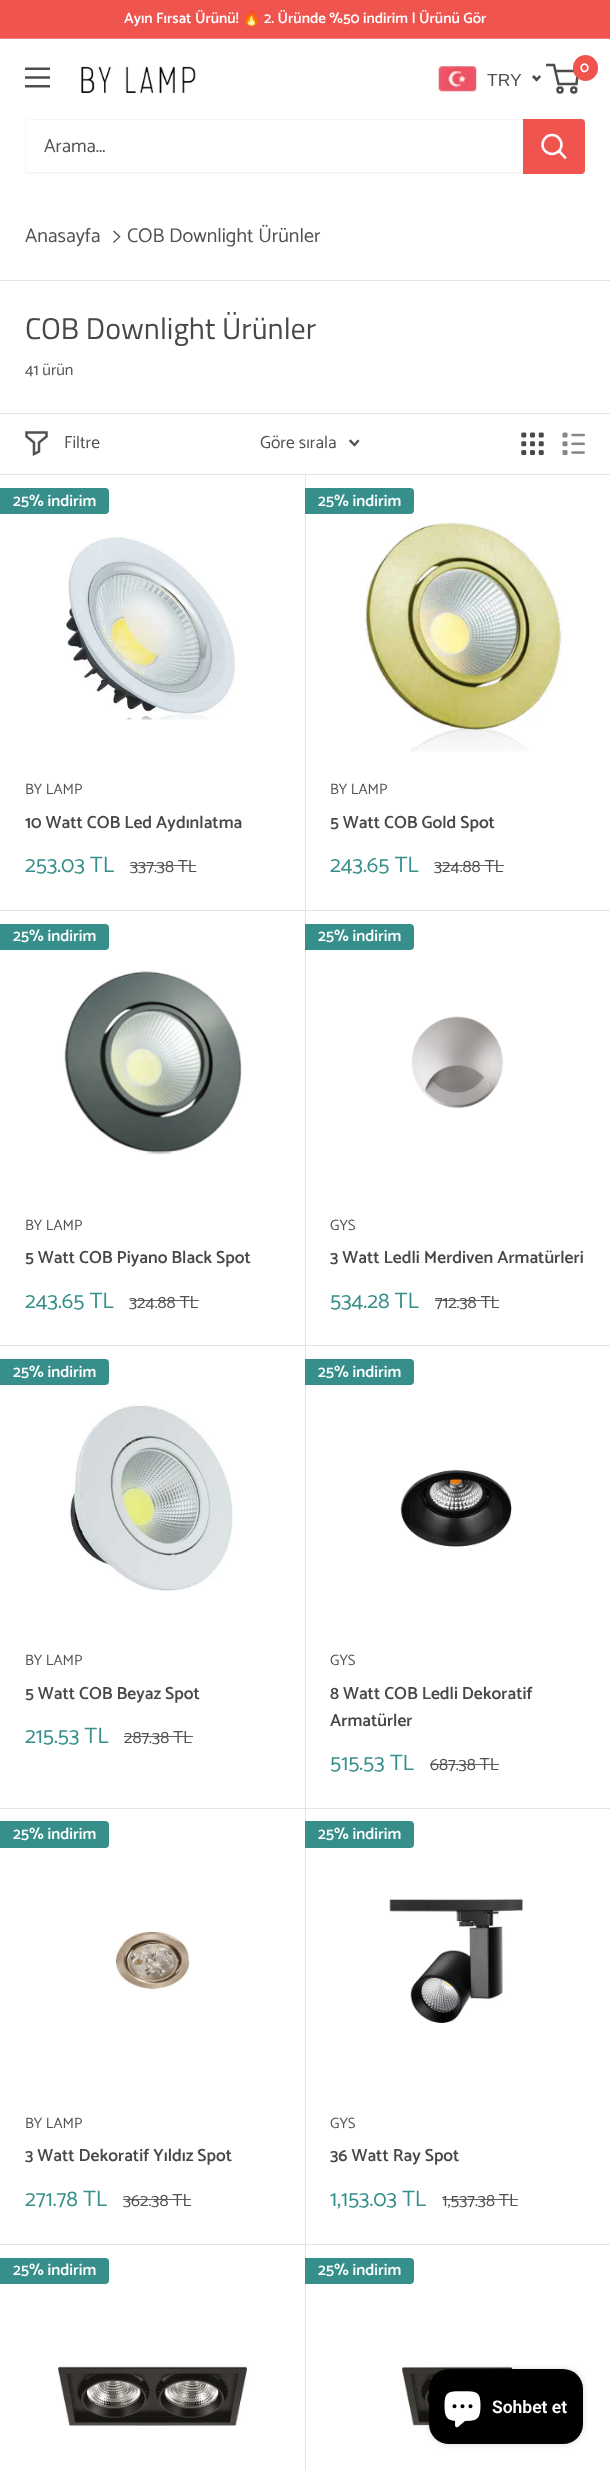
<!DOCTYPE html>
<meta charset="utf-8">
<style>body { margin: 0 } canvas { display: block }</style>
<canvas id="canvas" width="610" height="2470"></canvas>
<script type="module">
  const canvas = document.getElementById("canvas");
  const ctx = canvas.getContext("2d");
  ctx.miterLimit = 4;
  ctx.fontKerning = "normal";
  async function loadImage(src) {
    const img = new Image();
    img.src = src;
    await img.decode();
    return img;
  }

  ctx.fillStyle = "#ffffff";
  ctx.fillRect(0, 0, 610, 2470);
  ctx.fillStyle = "#f0544f";
  ctx.fillRect(0, 0, 610, 38);
  ctx.fillStyle = "#ed7f7a";
  ctx.fillRect(0, 38, 610, 1);
  ctx.font = "600 15px Catamaran";
  ctx.fillStyle = "#ffffff";
  ctx.fillText("Ayın Fırsat Ürünü!", 124, 23);
  ctx.font = "bold 15px Noto Color Emoji";
  ctx.fillText("🔥", 242, 23);
  ctx.font = "600 15px Catamaran";
  ctx.fillText("2. Üründe %50 indirim | Ürünü Gör", 264, 23);
  ctx.drawImage(await loadImage("img1.png"), 25, 67, 25, 21);
  ctx.drawImage(await loadImage("img2.png"), 81, 66, 115, 27);
  ctx.beginPath();
  ctx.arc(560, 90, 2.5, 0, Math.PI * 2);
  ctx.strokeStyle = "#4d4d4d";
  ctx.lineWidth = 2.5;
  ctx.stroke();
  ctx.beginPath();
  ctx.arc(573.8, 90, 2.5, 0, Math.PI * 2);
  ctx.stroke();
  ctx.beginPath();
  ctx.moveTo(555.5, 71);
  ctx.lineTo(578, 71);
  ctx.lineTo(576.5, 84);
  ctx.lineTo(558.5, 84);
  ctx.lineTo(554, 65);
  ctx.lineTo(546, 65);
  ctx.stroke();
  ctx.fillStyle = "#f0544f";
  ctx.beginPath();
  ctx.roundRect(573, 55, 25, 26, 12.5);
  ctx.fill();
  ctx.fillStyle = "#ffffff";
  ctx.fillText("0", 580, 72);
  ctx.drawImage(await loadImage("img3.png"), 438, 66, 39, 26);
  ctx.font = "17.5px Liberation Sans";
  ctx.fillStyle = "#515151";
  ctx.fillText("TRY", 487, 86);
  ctx.fillStyle = "#4d4d4d";
  ctx.beginPath();
  ctx.moveTo(539.5, 75);
  ctx.lineTo(541, 77);
  ctx.lineTo(536.5, 81.5);
  ctx.lineTo(535, 79.5);
  ctx.closePath();
  ctx.fill();
  ctx.beginPath();
  ctx.moveTo(534, 75);
  ctx.lineTo(538.5, 79.5);
  ctx.lineTo(536.5, 81.5);
  ctx.lineTo(532, 77);
  ctx.closePath();
  ctx.fill();
  ctx.fillStyle = "#f8f6f5";
  ctx.beginPath();
  ctx.moveTo(25, 172);
  ctx.bezierCurveTo(26, 173, 27, 174, 29, 174);
  ctx.lineTo(581, 174);
  ctx.bezierCurveTo(583, 174, 585, 172, 585, 170);
  ctx.lineTo(585, 123);
  ctx.bezierCurveTo(585, 122, 585, 121, 584, 120);
  ctx.lineTo(584, 169);
  ctx.bezierCurveTo(584, 171, 582, 172, 580, 172);
  ctx.lineTo(28, 172);
  ctx.closePath();
  ctx.fill();
  ctx.fillStyle = "rgba(231, 226, 222, 0.3)";
  ctx.beginPath();
  ctx.moveTo(30, 120);
  ctx.lineTo(582, 120);
  ctx.lineTo(584, 120);
  ctx.bezierCurveTo(583, 120, 582, 119, 581, 119);
  ctx.lineTo(29, 119);
  ctx.bezierCurveTo(27, 119, 25, 121, 25, 123);
  ctx.lineTo(25, 170);
  ctx.bezierCurveTo(25, 171, 26, 173, 27, 173);
  ctx.lineTo(26, 171);
  ctx.lineTo(26, 124);
  ctx.bezierCurveTo(26, 122, 28, 120, 30, 120);
  ctx.closePath();
  ctx.fill();
  ctx.font = "19px Catamaran";
  ctx.fillStyle = "#515151";
  ctx.fillText("Arama...", 44, 152);
  ctx.fillStyle = "#f0544f";
  ctx.beginPath();
  ctx.roundRect(523, 119, 62, 55, [0, 4, 4, 0]);
  ctx.fill();
  ctx.beginPath();
  ctx.moveTo(565, 157.5);
  ctx.lineTo(559, 151);
  ctx.strokeStyle = "#ffffff";
  ctx.lineCap = "square";
  ctx.stroke();
  ctx.beginPath();
  ctx.arc(552, 144.5, 9.5, 0, Math.PI * 2);
  ctx.stroke();
  ctx.font = "20px Catamaran";
  ctx.fillStyle = "#515151";
  ctx.fillText("Anasayfa", 25, 242);
  ctx.beginPath();
  ctx.moveTo(114, 230.5);
  ctx.lineTo(120.5, 236.5);
  ctx.lineTo(119.5, 237.5);
  ctx.lineTo(113, 231.5);
  ctx.closePath();
  ctx.fill();
  ctx.beginPath();
  ctx.moveTo(119.5, 236);
  ctx.lineTo(120.5, 236.5);
  ctx.lineTo(114, 243);
  ctx.lineTo(113, 242);
  ctx.closePath();
  ctx.fill();
  ctx.fillText("COB Downlight Ürünler", 127, 242);
  ctx.fillStyle = "#e7e2de";
  ctx.fillRect(0, 280, 610, 1);
  ctx.font = "30px Titillium Web";
  ctx.fillStyle = "#484848";
  ctx.fillText("COB Downlight Ürünler", 25, 339);
  ctx.font = "16.25px Catamaran";
  ctx.fillStyle = "#515151";
  ctx.fillText("41 ürün", 25, 375);
  ctx.fillStyle = "#e7e2de";
  ctx.fillRect(0, 413, 610, 1);
  ctx.fillRect(0, 910, 610, 1);
  ctx.fillRect(305, 474, 1, 871);
  ctx.fillRect(0, 474, 610, 1);
  ctx.beginPath();
  ctx.moveTo(46.5, 436.5);
  ctx.lineTo(39, 442.5);
  ctx.lineTo(39, 451.5);
  ctx.lineTo(34, 454);
  ctx.lineTo(34, 442.5);
  ctx.lineTo(26.5, 436.5);
  ctx.lineTo(26.5, 432.5);
  ctx.lineTo(46.5, 432.5);
  ctx.closePath();
  ctx.strokeStyle = "#515151";
  ctx.stroke();
  ctx.font = "17.5px Catamaran";
  ctx.fillStyle = "#515151";
  ctx.fillText("Filtre", 64, 448);
  ctx.fillText("Göre sırala", 260, 448);
  ctx.beginPath();
  ctx.moveTo(358, 441);
  ctx.lineTo(354.5, 445);
  ctx.lineTo(350.5, 441);
  ctx.lineWidth = 2.3;
  ctx.stroke();
  ctx.drawImage(await loadImage("img4.png"), 521, 432, 23, 24);
  ctx.drawImage(await loadImage("img5.png"), 562, 432, 23, 24);
  ctx.fillStyle = "#368f8b";
  ctx.beginPath();
  ctx.roundRect(0, 488, 109, 26, [0, 4, 4, 0]);
  ctx.fill();
  ctx.font = "600 16.25px Catamaran";
  ctx.fillStyle = "#ffffff";
  ctx.fillText("25% indirim", 13, 506);
  ctx.drawImage(await loadImage("img6.png"), 64, 537, 171, 183);
  ctx.font = "15px Catamaran";
  ctx.fillStyle = "#515151";
  ctx.fillText("BY LAMP", 25, 794);
  ctx.font = "600 17.5px Catamaran";
  ctx.fillStyle = "#484848";
  ctx.fillText("10 Watt COB Led Aydınlatma", 25, 828);
  ctx.font = "22.5px Catamaran";
  ctx.fillStyle = "#368f8b";
  ctx.fillText("253.03 TL", 25, 872);
  ctx.font = "17.5px Catamaran";
  ctx.fillStyle = "#515151";
  ctx.fillText("337.38 TL", 130, 872);
  ctx.fillStyle = "rgba(81, 81, 81, 0.7)";
  ctx.fillRect(130, 865, 66, 1);
  ctx.fillRect(130, 865, 66, 1);
  ctx.fillStyle = "#368f8b";
  ctx.beginPath();
  ctx.roundRect(305, 488, 109, 26, [0, 4, 4, 0]);
  ctx.fill();
  ctx.font = "600 16.25px Catamaran";
  ctx.fillStyle = "#ffffff";
  ctx.fillText("25% indirim", 318, 506);
  ctx.drawImage(await loadImage("img7.png"), 365, 522, 199, 230);
  ctx.font = "15px Catamaran";
  ctx.fillStyle = "#515151";
  ctx.fillText("BY LAMP", 330, 794);
  ctx.font = "600 17.5px Catamaran";
  ctx.fillStyle = "#484848";
  ctx.fillText("5 Watt COB Gold Spot", 330, 828);
  ctx.font = "22.5px Catamaran";
  ctx.fillStyle = "#368f8b";
  ctx.fillText("243.65 TL", 330, 872);
  ctx.font = "17.5px Catamaran";
  ctx.fillStyle = "#515151";
  ctx.fillText("324.88 TL", 434, 872);
  ctx.fillStyle = "rgba(81, 81, 81, 0.7)";
  ctx.fillRect(435, 865, 69, 1);
  ctx.fillRect(435, 865, 69, 1);
  ctx.fillStyle = "#368f8b";
  ctx.beginPath();
  ctx.roundRect(0, 924, 109, 26, [0, 4, 4, 0]);
  ctx.fill();
  ctx.font = "600 16.25px Catamaran";
  ctx.fillStyle = "#ffffff";
  ctx.fillText("25% indirim", 13, 941);
  ctx.drawImage(await loadImage("img8.png"), 63, 971, 179, 184);
  ctx.font = "15px Catamaran";
  ctx.fillStyle = "#515151";
  ctx.fillText("BY LAMP", 25, 1230);
  ctx.font = "600 17.5px Catamaran";
  ctx.fillStyle = "#484848";
  ctx.fillText("5 Watt COB Piyano Black Spot", 25, 1263);
  ctx.font = "22.5px Catamaran";
  ctx.fillStyle = "#368f8b";
  ctx.fillText("243.65 TL", 25, 1308);
  ctx.font = "17.5px Catamaran";
  ctx.fillStyle = "#515151";
  ctx.fillText("324.88 TL", 129, 1308);
  ctx.fillStyle = "rgba(81, 81, 81, 0.7)";
  ctx.fillRect(130, 1300, 69, 1);
  ctx.fillRect(130, 1300, 69, 1);
  ctx.fillStyle = "#e7e2de";
  ctx.fillRect(0, 1345, 610, 1);
  ctx.fillStyle = "#368f8b";
  ctx.beginPath();
  ctx.roundRect(305, 924, 109, 26, [0, 4, 4, 0]);
  ctx.fill();
  ctx.font = "600 16.25px Catamaran";
  ctx.fillStyle = "#ffffff";
  ctx.fillText("25% indirim", 318, 941);
  ctx.drawImage(await loadImage("img9.png"), 411, 1016, 93, 93);
  ctx.font = "15px Catamaran";
  ctx.fillStyle = "#515151";
  ctx.fillText("GYS", 330, 1230);
  ctx.font = "600 17.5px Catamaran";
  ctx.fillStyle = "#484848";
  ctx.fillText("3 Watt Ledli Merdiven Armatürleri", 330, 1263);
  ctx.font = "22.5px Catamaran";
  ctx.fillStyle = "#368f8b";
  ctx.fillText("534.28 TL", 330, 1308);
  ctx.font = "17.5px Catamaran";
  ctx.fillStyle = "#515151";
  ctx.fillText("712.38 TL", 435, 1308);
  ctx.fillStyle = "rgba(81, 81, 81, 0.7)";
  ctx.fillRect(435, 1300, 64, 1);
  ctx.fillRect(435, 1300, 64, 1);
  ctx.fillStyle = "#e7e2de";
  ctx.fillRect(0, 1808, 610, 1);
  ctx.beginPath();
  ctx.moveTo(1, 1808);
  ctx.lineTo(306, 1808);
  ctx.lineTo(306, 1345);
  ctx.lineTo(305, 1345);
  ctx.lineTo(305, 1808);
  ctx.closePath();
  ctx.fill();
  ctx.fillStyle = "#368f8b";
  ctx.beginPath();
  ctx.roundRect(0, 1359, 109, 26, [0, 4, 4, 0]);
  ctx.fill();
  ctx.font = "600 16.25px Catamaran";
  ctx.fillStyle = "#ffffff";
  ctx.fillText("25% indirim", 13, 1377);
  ctx.drawImage(await loadImage("img10.png"), 68, 1404, 166, 187);
  ctx.font = "15px Catamaran";
  ctx.fillStyle = "#515151";
  ctx.fillText("BY LAMP", 25, 1665);
  ctx.font = "600 17.5px Catamaran";
  ctx.fillStyle = "#484848";
  ctx.fillText("5 Watt COB Beyaz Spot", 25, 1699);
  ctx.font = "22.5px Catamaran";
  ctx.fillStyle = "#368f8b";
  ctx.fillText("215.53 TL", 25, 1743);
  ctx.font = "17.5px Catamaran";
  ctx.fillStyle = "#515151";
  ctx.fillText("287.38 TL", 124, 1743);
  ctx.fillStyle = "rgba(81, 81, 81, 0.7)";
  ctx.fillRect(124, 1736, 69, 1);
  ctx.fillRect(124, 1736, 69, 1);
  ctx.fillStyle = "#368f8b";
  ctx.beginPath();
  ctx.roundRect(305, 1359, 109, 26, [0, 4, 4, 0]);
  ctx.fill();
  ctx.font = "600 16.25px Catamaran";
  ctx.fillStyle = "#ffffff";
  ctx.fillText("25% indirim", 318, 1377);
  ctx.drawImage(await loadImage("img11.png"), 400, 1470, 112, 77);
  ctx.font = "15px Catamaran";
  ctx.fillStyle = "#515151";
  ctx.fillText("GYS", 330, 1665);
  ctx.font = "600 17.5px Catamaran";
  ctx.fillStyle = "#484848";
  ctx.fillText("8 Watt COB Ledli Dekoratif", 330, 1699);
  ctx.fillText("Armatürler", 330, 1726);
  ctx.font = "22.5px Catamaran";
  ctx.fillStyle = "#368f8b";
  ctx.fillText("515.53 TL", 330, 1770);
  ctx.font = "17.5px Catamaran";
  ctx.fillStyle = "#515151";
  ctx.fillText("687.38 TL", 430, 1770);
  ctx.fillStyle = "rgba(81, 81, 81, 0.7)";
  ctx.fillRect(430, 1764, 69, 1);
  ctx.fillRect(430, 1764, 69, 1);
  ctx.fillStyle = "#e7e2de";
  ctx.fillRect(0, 2244, 610, 1);
  ctx.beginPath();
  ctx.moveTo(1, 2244);
  ctx.lineTo(306, 2244);
  ctx.lineTo(306, 1808);
  ctx.lineTo(305, 1808);
  ctx.lineTo(305, 2244);
  ctx.closePath();
  ctx.fill();
  ctx.fillStyle = "#368f8b";
  ctx.beginPath();
  ctx.roundRect(0, 1821, 109, 27, [0, 4, 4, 0]);
  ctx.fill();
  ctx.font = "600 16.25px Catamaran";
  ctx.fillStyle = "#ffffff";
  ctx.fillText("25% indirim", 13, 1839);
  ctx.drawImage(await loadImage("img12.png"), 115, 1931, 75, 59);
  ctx.font = "15px Catamaran";
  ctx.fillStyle = "#515151";
  ctx.fillText("BY LAMP", 25, 2128);
  ctx.font = "600 17.5px Catamaran";
  ctx.fillStyle = "#484848";
  ctx.fillText("3 Watt Dekoratif Yıldız Spot", 25, 2161);
  ctx.font = "22.5px Catamaran";
  ctx.fillStyle = "#368f8b";
  ctx.fillText("271.78 TL", 25, 2206);
  ctx.font = "17.5px Catamaran";
  ctx.fillStyle = "#515151";
  ctx.fillText("362.38 TL", 123, 2206);
  ctx.fillStyle = "rgba(81, 81, 81, 0.7)";
  ctx.fillRect(123, 2199, 68, 1);
  ctx.fillRect(123, 2199, 68, 1);
  ctx.fillStyle = "#368f8b";
  ctx.beginPath();
  ctx.roundRect(305, 1821, 109, 27, [0, 4, 4, 0]);
  ctx.fill();
  ctx.font = "600 16.25px Catamaran";
  ctx.fillStyle = "#ffffff";
  ctx.fillText("25% indirim", 318, 1839);
  ctx.drawImage(await loadImage("img13.png"), 389, 1898, 134, 125);
  ctx.font = "15px Catamaran";
  ctx.fillStyle = "#515151";
  ctx.fillText("GYS", 330, 2128);
  ctx.font = "600 17.5px Catamaran";
  ctx.fillStyle = "#484848";
  ctx.fillText("36 Watt Ray Spot", 330, 2161);
  ctx.font = "22.5px Catamaran";
  ctx.fillStyle = "#368f8b";
  ctx.fillText("1,153.03 TL", 330, 2206);
  ctx.font = "17.5px Catamaran";
  ctx.fillStyle = "#515151";
  ctx.fillText("1,537.38 TL", 442, 2206);
  ctx.fillStyle = "rgba(81, 81, 81, 0.7)";
  ctx.fillRect(443, 2199, 75, 1);
  ctx.fillRect(443, 2199, 75, 1);
  ctx.fillStyle = "#368f8b";
  ctx.beginPath();
  ctx.roundRect(0, 2258, 109, 26, [0, 4, 4, 0]);
  ctx.fill();
  ctx.font = "600 16.25px Catamaran";
  ctx.fillStyle = "#ffffff";
  ctx.fillText("25% indirim", 13, 2275);
  ctx.fillStyle = "#e7e2de";
  ctx.fillRect(305, 2244, 1, 226);
  ctx.drawImage(await loadImage("img14.png"), 57, 2366, 192, 61);
  ctx.fillStyle = "#368f8b";
  ctx.beginPath();
  ctx.roundRect(305, 2258, 109, 26, [0, 4, 4, 0]);
  ctx.fill();
  ctx.fillStyle = "#ffffff";
  ctx.fillText("25% indirim", 318, 2275);
  ctx.drawImage(await loadImage("img15.png"), 401, 2366, 113, 61);
  ctx.fillStyle = "rgba(0, 0, 0, 0.15)";
  ctx.filter = "blur(3px)";
  ctx.beginPath();
  ctx.roundRect(429, 2369, 154, 75, 20);
  ctx.fill();
  ctx.filter = "none";
  ctx.fillStyle = "#000000";
  ctx.beginPath();
  ctx.roundRect(429, 2369, 154, 75, 20);
  ctx.fill();
  ctx.drawImage(await loadImage("img16.png"), 444, 2391, 37, 37);
  ctx.font = "600 17.5px Roboto";
  ctx.fillStyle = "#ffffff";
  ctx.fillText("Sohbet et", 492, 2413);
</script>
